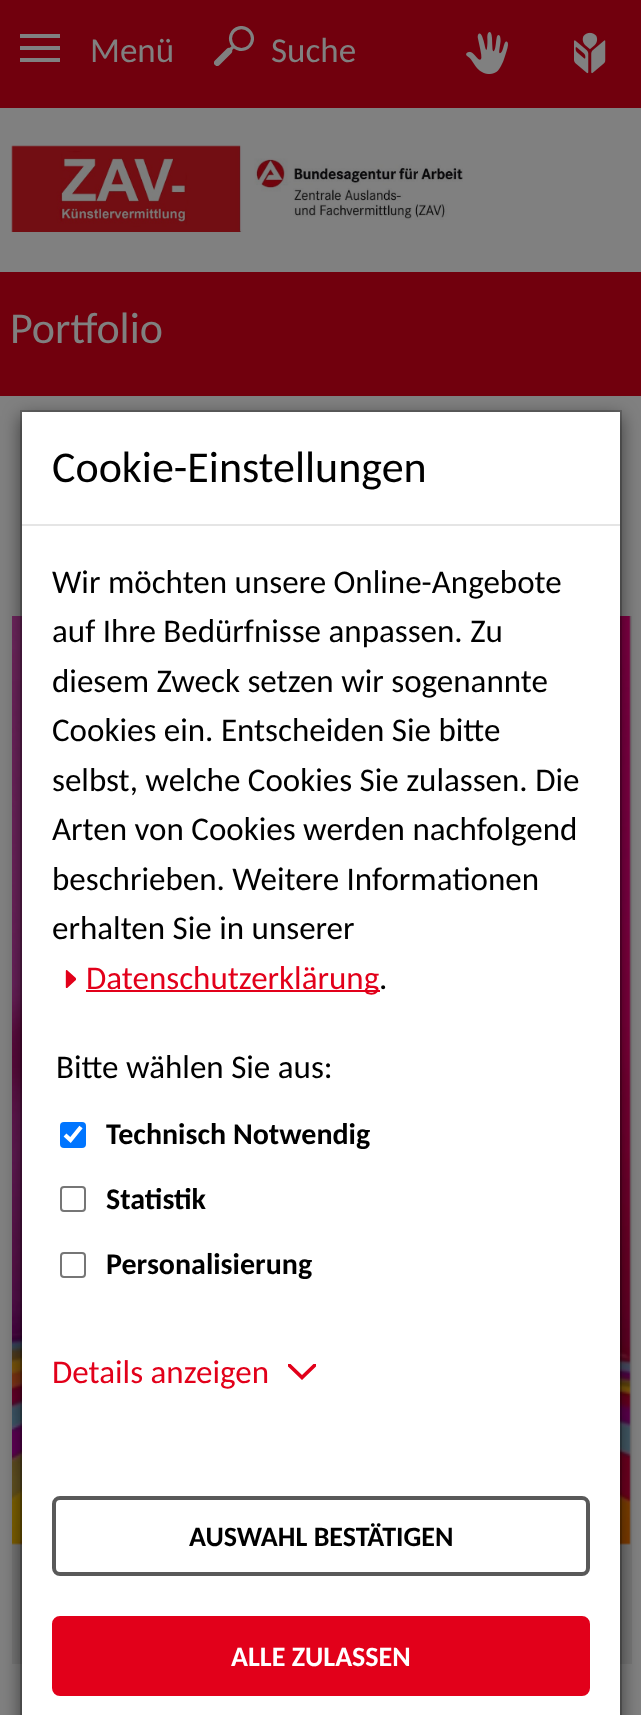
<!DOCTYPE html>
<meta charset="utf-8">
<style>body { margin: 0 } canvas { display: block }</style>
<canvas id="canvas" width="641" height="1715"></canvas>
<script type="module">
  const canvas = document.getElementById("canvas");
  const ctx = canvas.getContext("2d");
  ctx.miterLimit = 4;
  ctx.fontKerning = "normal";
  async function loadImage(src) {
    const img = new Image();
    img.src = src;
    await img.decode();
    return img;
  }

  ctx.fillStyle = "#808080";
  ctx.fillRect(0, 0, 641, 1715);
  ctx.fillStyle = "#71000d";
  ctx.fillRect(0, 0, 641, 108);
  ctx.drawImage(await loadImage("img1.png"), 20, 34, 40, 28);
  ctx.font = "35px Carlito";
  ctx.fillStyle = "#808080";
  ctx.fillText("Menü", 90, 62);
  ctx.drawImage(await loadImage("img2.png"), 214, 26, 40, 40);
  ctx.fillText("Suche", 271, 62);
  ctx.drawImage(await loadImage("img3.png"), 466, 32, 42, 42);
  ctx.drawImage(await loadImage("img4.png"), 574, 32, 32, 42);
  ctx.drawImage(await loadImage("img5.png"), 11, 145, 452, 87);
  ctx.fillStyle = "#71000d";
  ctx.fillRect(0, 272, 641, 124);
  ctx.font = "44px Carlito";
  ctx.fillStyle = "#808080";
  ctx.fillText("Portfolio", 10, 343);
  ctx.fillStyle = "#777777";
  ctx.fillRect(12, 616, 620, 1048);
  ctx.drawImage(await loadImage("img6.png"), 12, 616, 619, 929);
  ctx.fillStyle = "rgba(0, 0, 0, 0.5)";
  ctx.filter = "blur(9px)";
  ctx.beginPath();
  ctx.rect(20, 416, 602, 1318);
  ctx.fill();
  ctx.filter = "none";
  ctx.fillStyle = "#ffffff";
  ctx.fillRect(22, 412, 598, 1303);
  ctx.strokeStyle = "rgba(0, 0, 0, 0.2)";
  ctx.lineWidth = 2;
  ctx.strokeRect(21, 411, 600, 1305);
  ctx.fillStyle = "#e5e5e5";
  ctx.fillRect(22, 524, 598, 2);
  ctx.fillStyle = "#000000";
  ctx.fillText("Cookie-Einstellungen", 52, 482);
  ctx.font = "33px Carlito";
  ctx.fillText("Wir möchten unsere Online-Angebote", 52, 593);
  ctx.fillText("auf Ihre Bedürfnisse anpassen. Zu", 52, 642);
  ctx.fillText("diesem Zweck setzen wir sogenannte", 52, 692);
  ctx.fillText("Cookies ein. Entscheiden Sie bitte", 52, 741);
  ctx.fillText("selbst, welche Cookies Sie zulassen. Die", 52, 791);
  ctx.fillText("Arten von Cookies werden nachfolgend", 52, 840);
  ctx.fillText("beschrieben. Weitere Informationen", 52, 890);
  ctx.fillText("erhalten Sie in unserer", 52, 939);
  ctx.drawImage(await loadImage("img7.png"), 65, 970, 11, 18);
  ctx.fillStyle = "#e2001a";
  ctx.fillRect(86, 990, 294, 2);
  ctx.fillText("Datenschutzerklärung", 86, 989);
  ctx.fillStyle = "#000000";
  ctx.fillText(".", 379, 989);
  ctx.fillText("Bitte wählen Sie aus:", 56, 1078);
  ctx.fillStyle = "#0075ff";
  ctx.beginPath();
  ctx.roundRect(60, 1122, 26, 26, 4);
  ctx.fill();
  ctx.beginPath();
  ctx.moveTo(65, 1135);
  ctx.lineTo(70.5, 1140);
  ctx.lineTo(81, 1127);
  ctx.strokeStyle = "#ffffff";
  ctx.lineWidth = 4.2;
  ctx.stroke();
  ctx.font = "bold 30px Carlito";
  ctx.fillStyle = "#000000";
  ctx.fillText("Technisch Notwendig", 106, 1144);
  ctx.beginPath();
  ctx.roundRect(61, 1187, 24, 24, 3);
  ctx.strokeStyle = "#767676";
  ctx.lineWidth = 2;
  ctx.stroke();
  ctx.fillText("Statistik", 106, 1209);
  ctx.beginPath();
  ctx.roundRect(61, 1253, 24, 24, 3);
  ctx.stroke();
  ctx.fillText("Personalisierung", 106, 1274);
  ctx.font = "33px Carlito";
  ctx.fillStyle = "#e2001a";
  ctx.fillText("Details anzeigen", 52, 1383);
  ctx.drawImage(await loadImage("img8.png"), 288, 1364, 28, 16);
  ctx.beginPath();
  ctx.roundRect(54, 1498, 534, 76, 6);
  ctx.strokeStyle = "#595959";
  ctx.lineWidth = 4;
  ctx.stroke();
  ctx.font = "bold 28px Carlito";
  ctx.fillStyle = "#000000";
  ctx.fillText("AUSWAHL BESTÄTIGEN", 189, 1546);
  ctx.fillStyle = "#e2001a";
  ctx.beginPath();
  ctx.roundRect(54, 1618, 534, 76, 6);
  ctx.fill();
  ctx.strokeStyle = "#e2001a";
  ctx.stroke();
  ctx.fillStyle = "#ffffff";
  ctx.fillText("ALLE ZULASSEN", 231, 1666);
</script>
